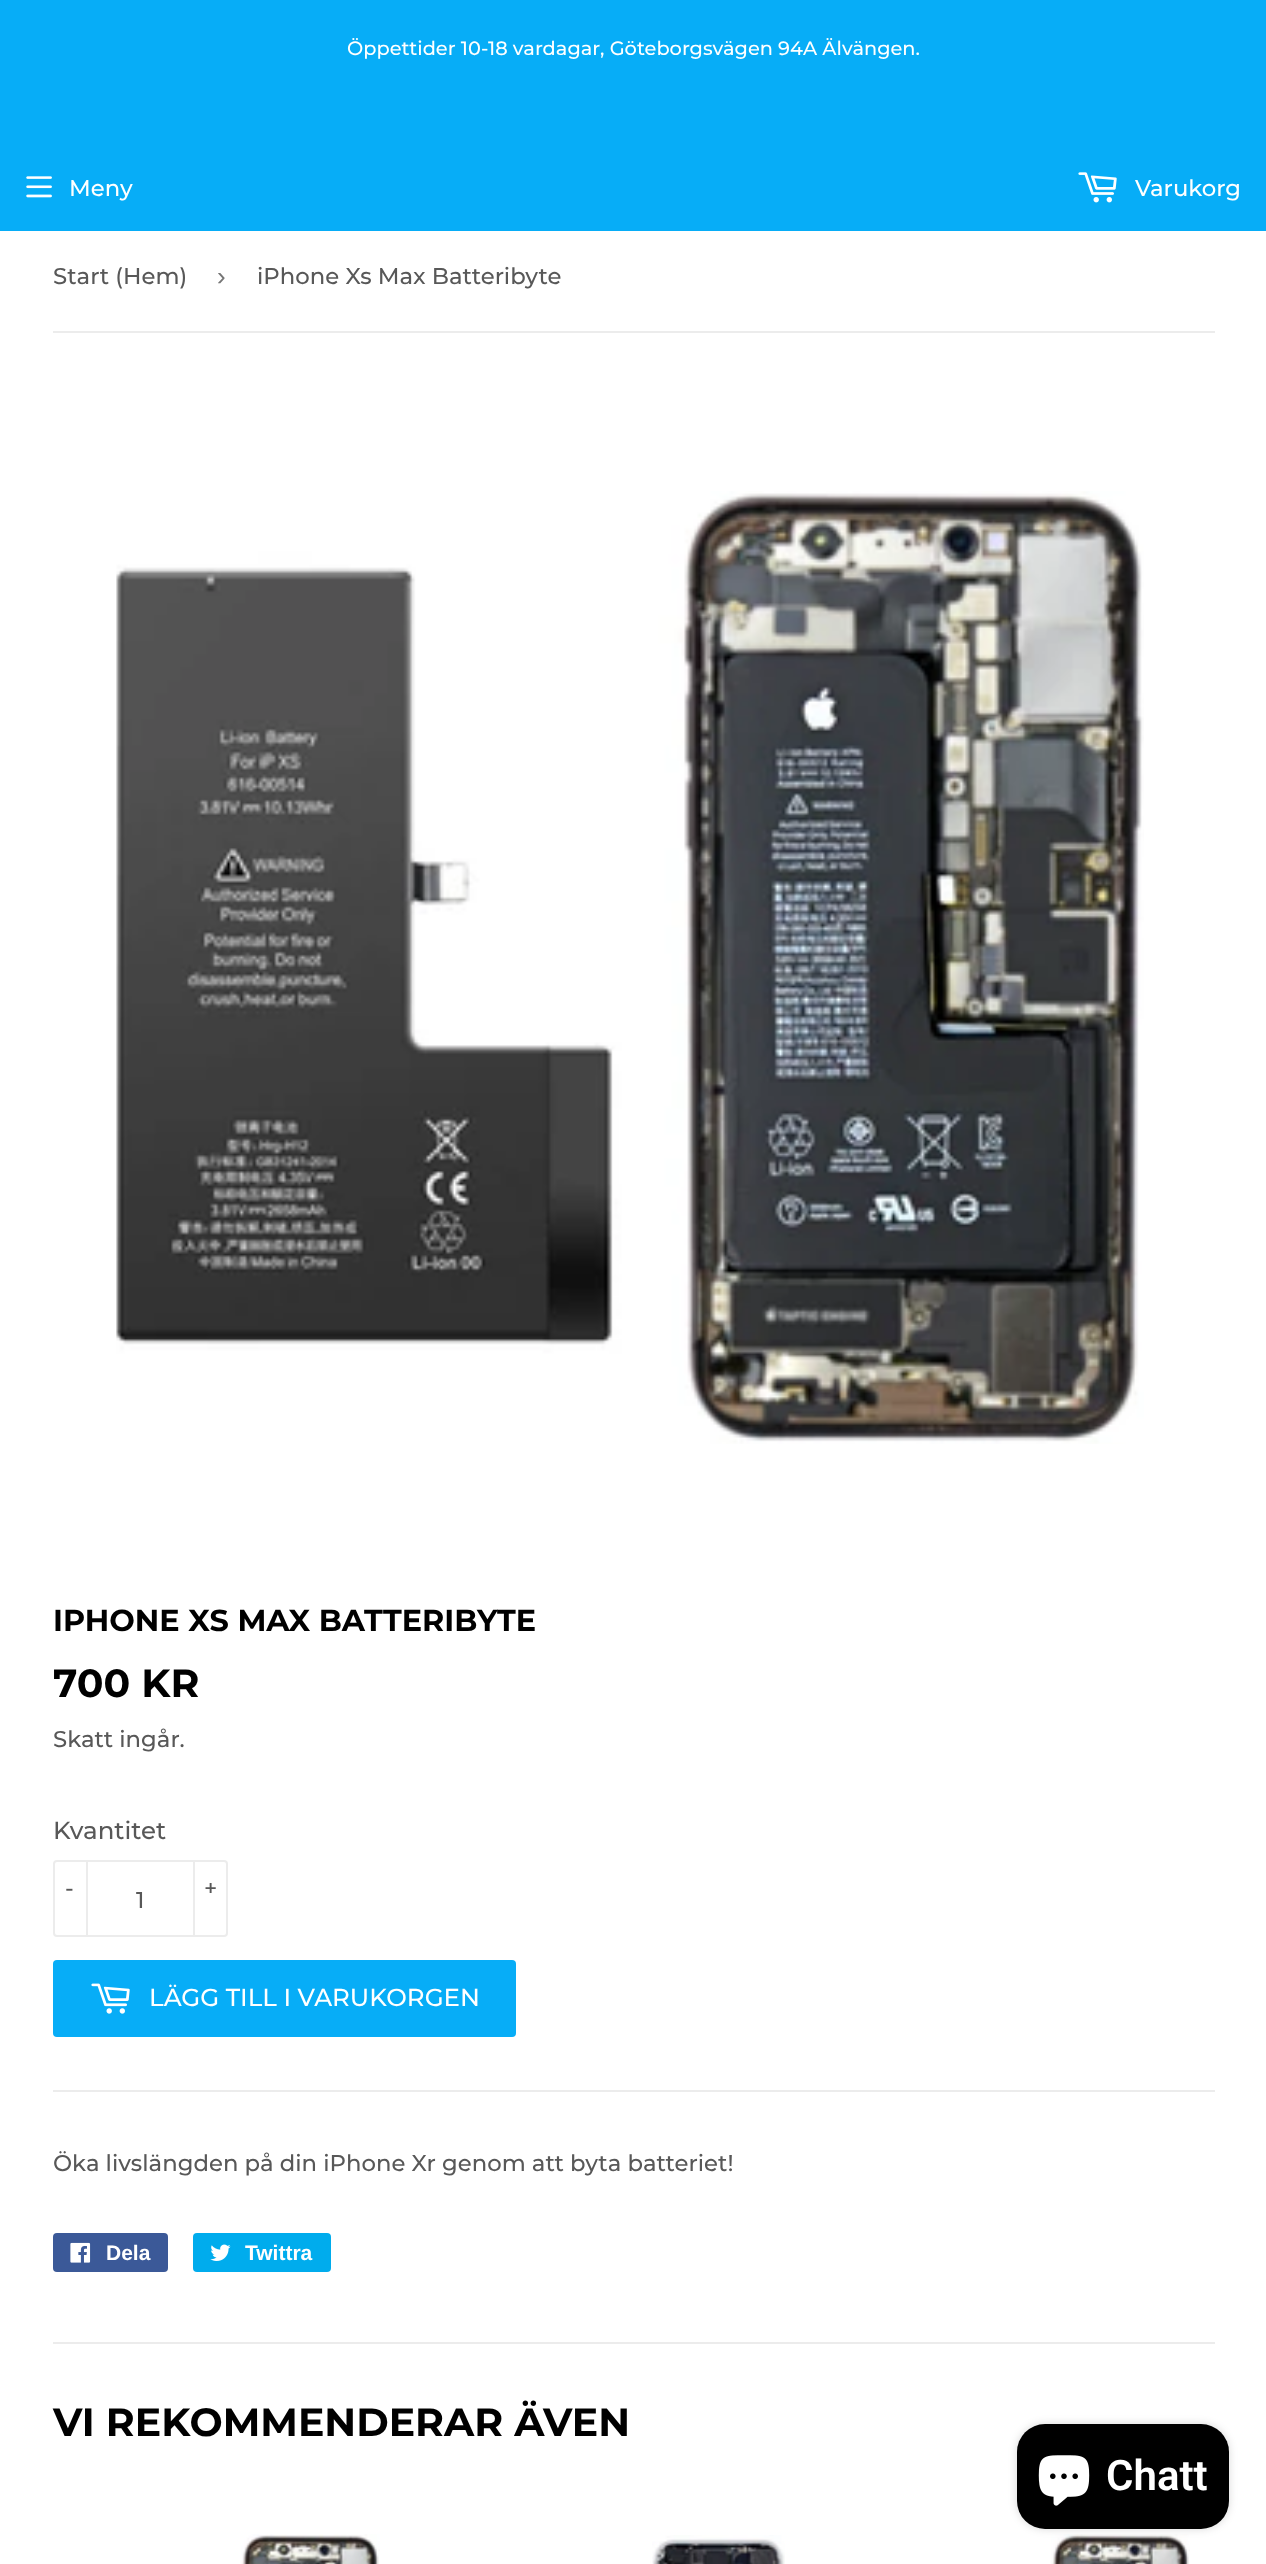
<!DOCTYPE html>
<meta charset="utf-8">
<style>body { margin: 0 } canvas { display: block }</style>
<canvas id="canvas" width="1266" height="2564"></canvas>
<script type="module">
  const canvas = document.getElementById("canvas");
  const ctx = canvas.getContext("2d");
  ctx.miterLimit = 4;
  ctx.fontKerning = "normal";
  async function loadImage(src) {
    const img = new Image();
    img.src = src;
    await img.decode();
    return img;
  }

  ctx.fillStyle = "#ffffff";
  ctx.fillRect(0, 0, 1266, 2564);
  ctx.fillStyle = "#07adf7";
  ctx.fillRect(0, 0, 1266, 231);
  ctx.font = "500 19.35px Montserrat";
  ctx.fillStyle = "#ffffff";
  ctx.fillText("Öppettider 10-18 vardagar, Göteborgsvägen 94A Älvängen.", 347, 55);
  ctx.drawImage(await loadImage("img1.png"), 26, 176, 26, 22);
  ctx.font = "500 22.75px Montserrat";
  ctx.fillText("Meny", 69, 196);
  ctx.drawImage(await loadImage("img2.png"), 1078, 172, 39, 31);
  ctx.fillText("Varukorg", 1135, 196);
  ctx.fillStyle = "#ececec";
  ctx.fillRect(53, 331, 1162, 2);
  ctx.fillStyle = "#585858";
  ctx.fillText("Start (Hem)", 53, 284);
  ctx.font = "26px Liberation Sans";
  ctx.fillStyle = "#767676";
  ctx.fillText("›", 217, 285);
  ctx.font = "500 22.75px Montserrat";
  ctx.fillStyle = "#585858";
  ctx.fillText("iPhone Xs Max Batteribyte", 257, 284);
  ctx.drawImage(await loadImage("img3.png"), 116, 491, 1028, 953);
  ctx.font = "bold 30.3px Montserrat";
  ctx.fillStyle = "#000000";
  ctx.fillText("IPHONE XS MAX BATTERIBYTE", 53, 1631);
  ctx.font = "bold 39.4px Montserrat";
  ctx.fillText("700 KR", 53, 1697);
  ctx.font = "500 22.75px Montserrat";
  ctx.fillStyle = "#585858";
  ctx.fillText("Skatt ingår.", 53, 1747);
  ctx.font = "500 24.5px Montserrat";
  ctx.fillText("Kvantitet", 53, 1839);
  ctx.beginPath();
  ctx.roundRect(54, 1861, 173, 75, 3);
  ctx.strokeStyle = "#ececec";
  ctx.lineWidth = 2;
  ctx.stroke();
  ctx.fillStyle = "#ececec";
  ctx.fillRect(86, 1860, 2, 77);
  ctx.font = "500 22.75px Montserrat";
  ctx.fillStyle = "#585858";
  ctx.fillText("-", 65, 1896);
  ctx.fillStyle = "#ececec";
  ctx.fillRect(193, 1860, 2, 77);
  ctx.fillStyle = "#585858";
  ctx.fillText("+", 204, 1896);
  ctx.fillText("1", 136, 1908);
  ctx.fillStyle = "#07adf7";
  ctx.beginPath();
  ctx.roundRect(53, 1960, 463, 77, 4);
  ctx.fill();
  ctx.drawImage(await loadImage("img4.png"), 91, 1983, 39, 31);
  ctx.font = "500 24.5px Montserrat";
  ctx.fillStyle = "#ffffff";
  ctx.fillText("LÄGG TILL I VARUKORGEN", 149, 2006);
  ctx.fillStyle = "#ececec";
  ctx.fillRect(53, 2090, 1162, 2);
  ctx.font = "500 22.75px Montserrat";
  ctx.fillStyle = "#585858";
  ctx.fillText("Öka livslängden på din iPhone Xr genom att byta batteriet!", 53, 2171);
  ctx.fillStyle = "#3b5998";
  ctx.beginPath();
  ctx.roundRect(53, 2233, 115, 39, 4);
  ctx.fill();
  ctx.drawImage(await loadImage("img5.png"), 70, 2242, 21, 21);
  ctx.font = "bold 21px Liberation Sans";
  ctx.fillStyle = "#ffffff";
  ctx.fillText("Dela", 106, 2260);
  ctx.fillStyle = "#00aced";
  ctx.beginPath();
  ctx.roundRect(193, 2233, 138, 39, 4);
  ctx.fill();
  ctx.drawImage(await loadImage("img6.png"), 210, 2244, 21, 17);
  ctx.fillStyle = "#ffffff";
  ctx.fillText("Twittra", 245, 2260);
  ctx.fillStyle = "#ececec";
  ctx.fillRect(53, 2342, 1162, 2);
  ctx.font = "bold 39.4px Montserrat";
  ctx.fillStyle = "#000000";
  ctx.fillText("VI REKOMMENDERAR ÄVEN", 53, 2436);
  ctx.drawImage(await loadImage("img7.png"), 241, 2534, 139, 30);
  ctx.drawImage(await loadImage("img8.png"), 652, 2535, 133, 29);
  ctx.drawImage(await loadImage("img9.png"), 1051, 2534, 139, 30);
  ctx.fillStyle = "rgba(0, 0, 0, 0.15)";
  ctx.filter = "blur(4.5px)";
  ctx.beginPath();
  ctx.roundRect(1017, 2424, 212, 105, 28);
  ctx.fill();
  ctx.filter = "none";
  ctx.fillStyle = "#000000";
  ctx.beginPath();
  ctx.roundRect(1017, 2424, 212, 105, 28);
  ctx.fill();
  ctx.drawImage(await loadImage("img10.png"), 1038, 2455, 52, 51);
  ctx.font = "600 42px Roboto";
  ctx.fillStyle = "#ffffff";
  ctx.fillText("Chatt", 1106, 2490);
</script>
